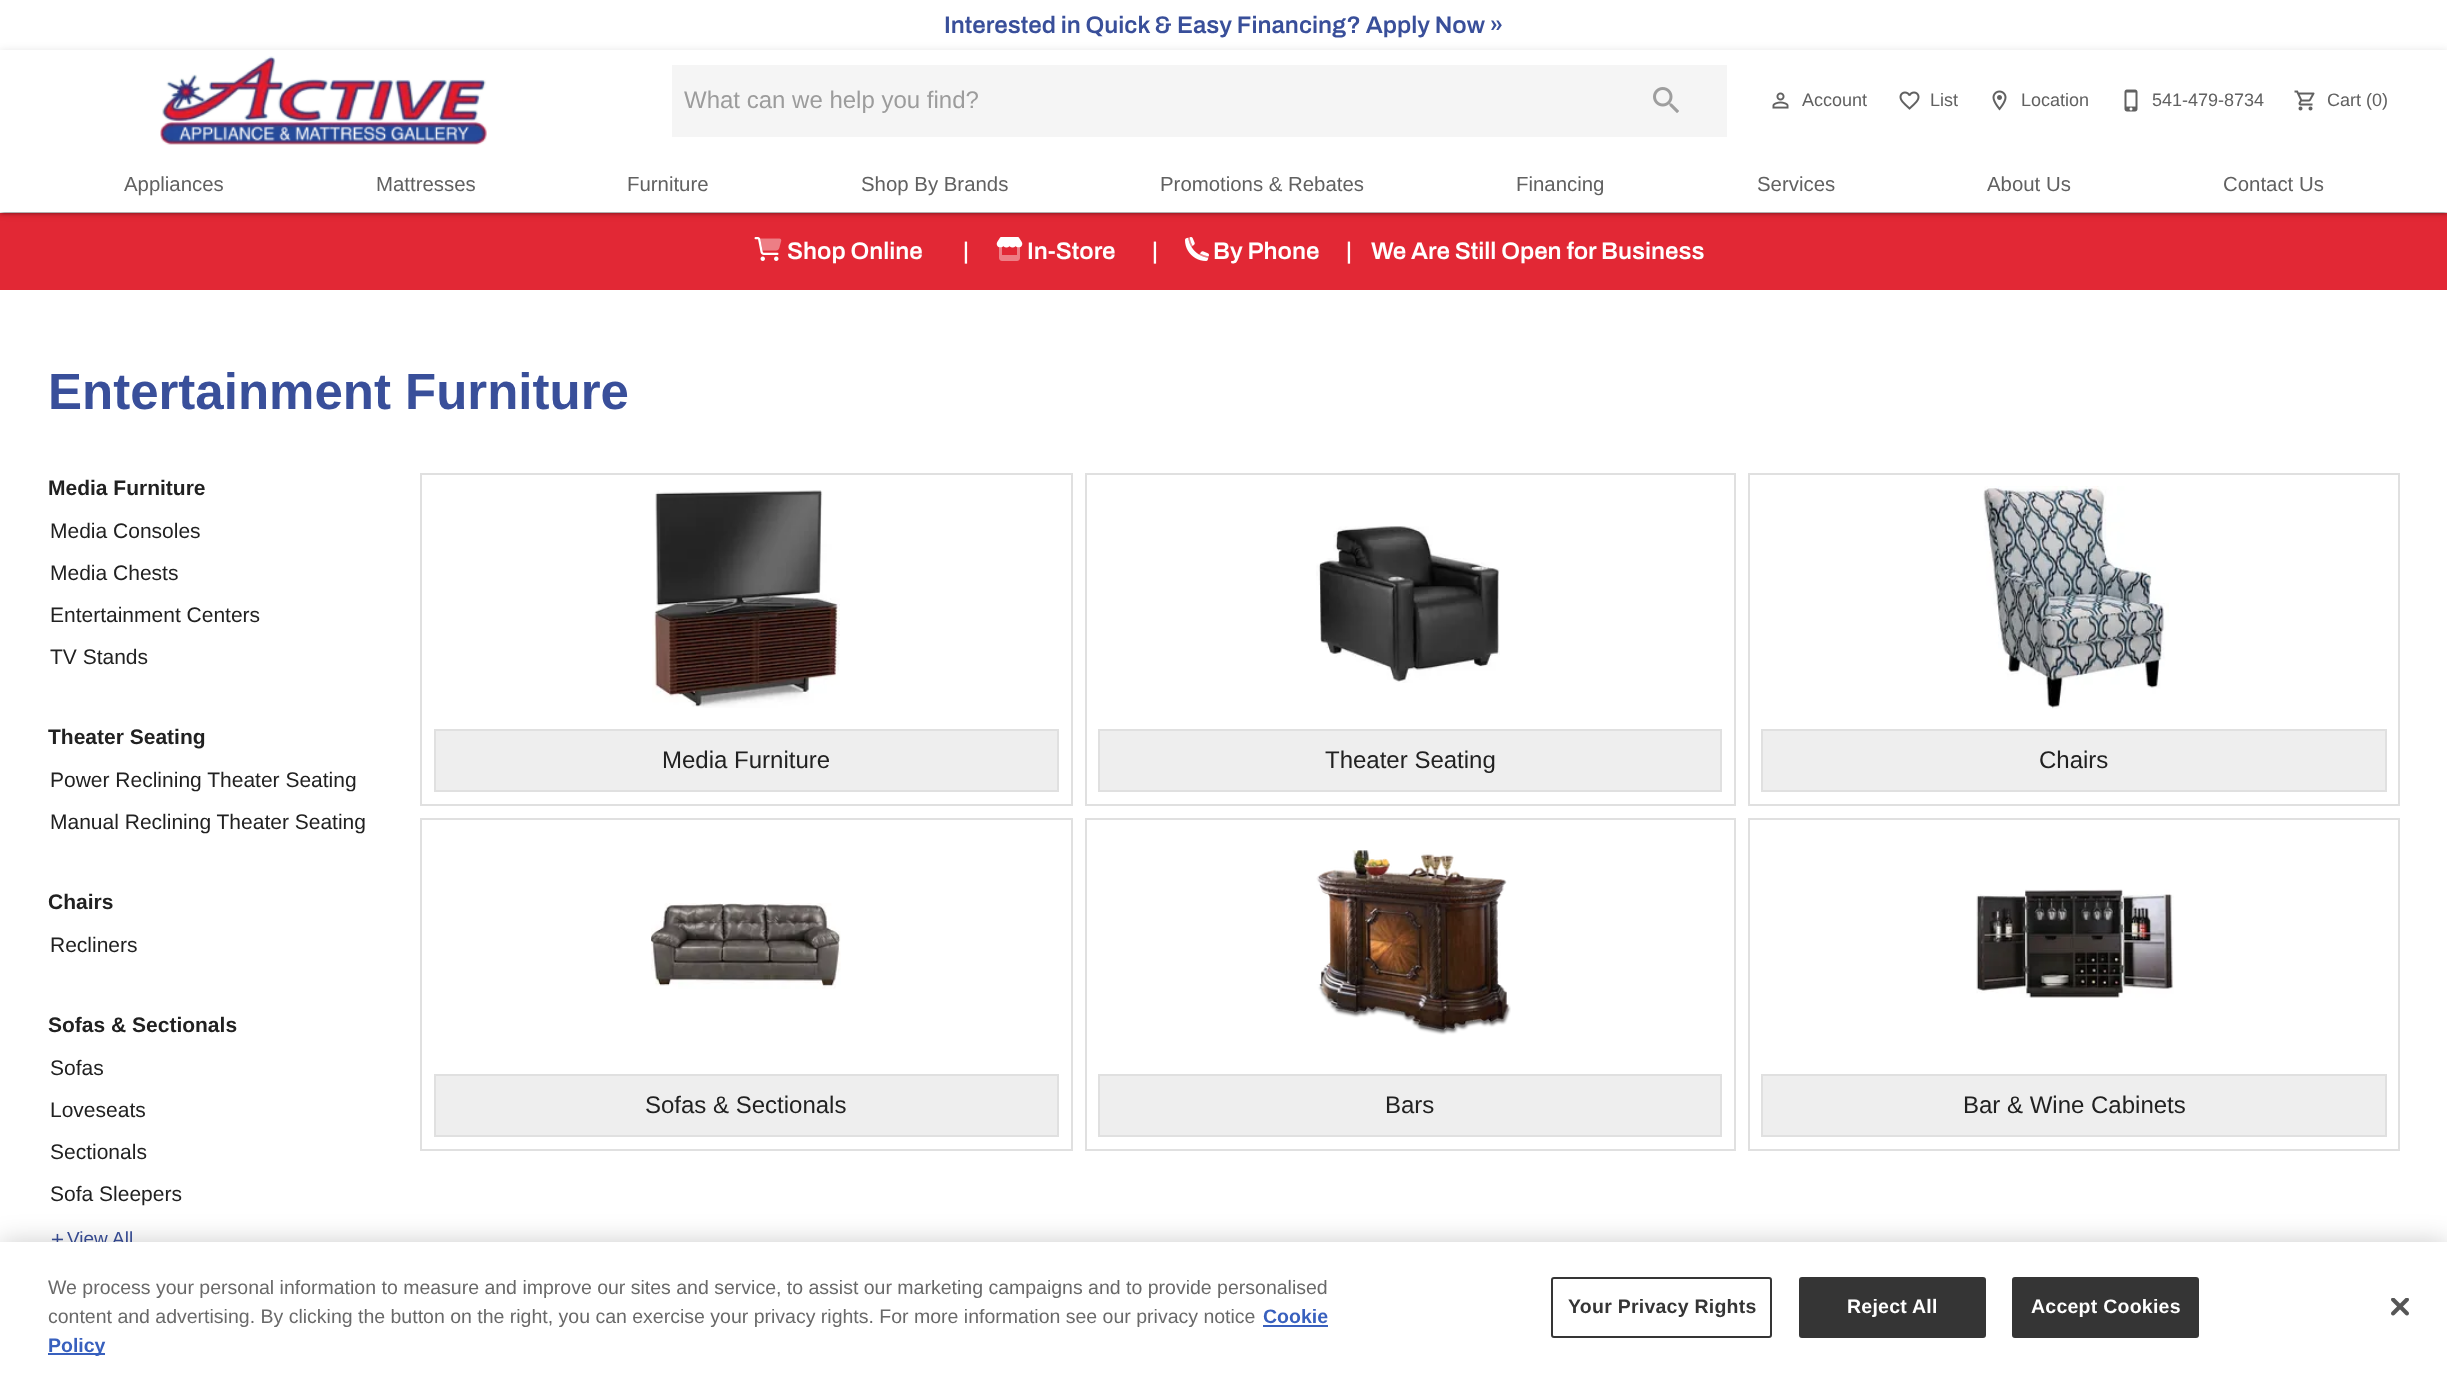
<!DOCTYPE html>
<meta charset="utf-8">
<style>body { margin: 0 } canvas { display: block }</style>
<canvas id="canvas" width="2447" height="1375"></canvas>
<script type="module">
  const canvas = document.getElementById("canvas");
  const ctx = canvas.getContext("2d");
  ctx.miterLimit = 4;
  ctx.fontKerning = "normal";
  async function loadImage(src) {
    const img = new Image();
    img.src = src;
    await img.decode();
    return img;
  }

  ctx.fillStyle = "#ffffff";
  ctx.fillRect(0, 0, 2447, 1375);
  ctx.font = "600 24px Archivo";
  ctx.fillStyle = "#394f9a";
  ctx.fillText("Interested in Quick & Easy Financing? Apply Now »", 944, 33);
  ctx.fillStyle = "#e22835";
  ctx.fillRect(0, 213, 2447, 77);
  ctx.fillStyle = "rgba(0, 0, 0, 0.12)";
  ctx.filter = "blur(4px)";
  ctx.beginPath();
  ctx.rect(0, 51, 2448, 162);
  ctx.fill();
  ctx.filter = "none";
  ctx.fillStyle = "rgba(0, 0, 0, 0.14)";
  ctx.filter = "blur(1.5px)";
  ctx.beginPath();
  ctx.rect(0, 53, 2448, 162);
  ctx.fill();
  ctx.filter = "none";
  ctx.fillStyle = "rgba(0, 0, 0, 0.2)";
  ctx.filter = "blur(1px)";
  ctx.beginPath();
  ctx.rect(3, 57, 2442, 156);
  ctx.fill();
  ctx.filter = "none";
  ctx.fillStyle = "#ffffff";
  ctx.fillRect(0, 50, 2447, 162);
  ctx.drawImage(await loadImage("img1.png"), 160, 56, 327, 89);
  ctx.fillStyle = "#f5f5f5";
  ctx.fillRect(672, 65, 1055, 72);
  ctx.font = "24px Liberation Sans";
  ctx.fillStyle = "#9c9c9c";
  ctx.fillText("What can we help you find?", 684, 108);
  ctx.drawImage(await loadImage("img2.png"), 1653, 87, 26, 26);
  ctx.drawImage(await loadImage("img3.png"), 1772, 92, 17, 17);
  ctx.font = "18px Liberation Sans";
  ctx.fillStyle = "#616161";
  ctx.fillText("Account", 1802, 106);
  ctx.drawImage(await loadImage("img4.png"), 1899, 91, 21, 19);
  ctx.fillText("List", 1930, 106);
  ctx.drawImage(await loadImage("img5.png"), 1992, 90, 15, 21);
  ctx.fillText("Location", 2021, 106);
  ctx.drawImage(await loadImage("img6.png"), 2124, 89, 14, 23);
  ctx.fillText("541-479-8734", 2152, 106);
  ctx.drawImage(await loadImage("img7.png"), 2294, 90, 21, 21);
  ctx.fillText("Cart (0)", 2327, 106);
  ctx.font = "20.4px Liberation Sans";
  ctx.fillText("Appliances", 124, 191);
  ctx.fillText("Mattresses", 376, 191);
  ctx.fillText("Furniture", 627, 191);
  ctx.fillText("Shop By Brands", 861, 191);
  ctx.fillText("Promotions & Rebates", 1160, 191);
  ctx.fillText("Financing", 1516, 191);
  ctx.fillText("Services", 1757, 191);
  ctx.fillText("About Us", 1987, 191);
  ctx.fillText("Contact Us", 2223, 191);
  ctx.drawImage(await loadImage("img8.png"), 754, 237, 25, 24);
  ctx.drawImage(await loadImage("img9.png"), 760, 238, 22, 13);
  ctx.font = "600 24px Archivo";
  ctx.fillStyle = "#ffffff";
  ctx.fillText("Shop Online", 787, 259);
  ctx.fillText("|", 963, 259);
  ctx.drawImage(await loadImage("img10.png"), 996, 237, 27, 11);
  ctx.drawImage(await loadImage("img11.png"), 999, 247, 21, 14);
  ctx.fillText("In-Store", 1027, 259);
  ctx.fillText("|", 1152, 259);
  ctx.drawImage(await loadImage("img12.png"), 1185, 237, 24, 24);
  ctx.drawImage(await loadImage("img13.png"), 1188, 237, 21, 21);
  ctx.fillText("By Phone", 1213, 259);
  ctx.fillText("|", 1346, 259);
  ctx.fillText("We Are Still Open for Business", 1371, 259);
  ctx.font = "bold 51px Liberation Sans";
  ctx.fillStyle = "#394f9a";
  ctx.fillText("Entertainment Furniture", 48, 409);
  ctx.font = "bold 21px Liberation Sans";
  ctx.fillStyle = "#212121";
  ctx.fillText("Media Furniture", 48, 495);
  ctx.font = "21px Liberation Sans";
  ctx.fillText("Media Consoles", 50, 538);
  ctx.fillText("Media Chests", 50, 580);
  ctx.fillText("Entertainment Centers", 50, 622);
  ctx.fillText("TV Stands", 50, 664);
  ctx.font = "bold 21px Liberation Sans";
  ctx.fillText("Theater Seating", 48, 744);
  ctx.font = "21px Liberation Sans";
  ctx.fillText("Power Reclining Theater Seating", 50, 787);
  ctx.fillText("Manual Reclining Theater Seating", 50, 829);
  ctx.font = "bold 21px Liberation Sans";
  ctx.fillText("Chairs", 48, 909);
  ctx.font = "21px Liberation Sans";
  ctx.fillText("Recliners", 50, 952);
  ctx.font = "bold 21px Liberation Sans";
  ctx.fillText("Sofas & Sectionals", 48, 1032);
  ctx.font = "21px Liberation Sans";
  ctx.fillText("Sofas", 50, 1075);
  ctx.fillText("Loveseats", 50, 1117);
  ctx.fillText("Sectionals", 50, 1159);
  ctx.fillText("Sofa Sleepers", 50, 1201);
  ctx.drawImage(await loadImage("img14.png"), 51, 1233, 12, 9);
  ctx.font = "19px Liberation Sans";
  ctx.fillStyle = "#394f9a";
  ctx.fillText("View All", 67, 1245);
  ctx.strokeStyle = "#e0e0e0";
  ctx.lineWidth = 2;
  ctx.strokeRect(421, 474, 651, 331);
  ctx.drawImage(await loadImage("img15.png"), 652, 490, 188, 218);
  ctx.fillStyle = "#eeeeee";
  ctx.beginPath();
  ctx.rect(435, 730, 623, 61);
  ctx.fill();
  ctx.stroke();
  ctx.font = "24px Liberation Sans";
  ctx.fillStyle = "#212121";
  ctx.fillText("Media Furniture", 662, 768);
  ctx.strokeRect(1086, 474, 649, 331);
  ctx.drawImage(await loadImage("img16.png"), 1316, 526, 184, 157);
  ctx.fillStyle = "#eeeeee";
  ctx.beginPath();
  ctx.rect(1099, 730, 622, 61);
  ctx.fill();
  ctx.stroke();
  ctx.fillStyle = "#212121";
  ctx.fillText("Theater Seating", 1325, 768);
  ctx.strokeRect(1749, 474, 650, 331);
  ctx.drawImage(await loadImage("img17.png"), 1983, 486, 186, 223);
  ctx.fillStyle = "#eeeeee";
  ctx.beginPath();
  ctx.rect(1762, 730, 624, 61);
  ctx.fill();
  ctx.stroke();
  ctx.fillStyle = "#212121";
  ctx.fillText("Chairs", 2039, 768);
  ctx.strokeRect(421, 819, 651, 331);
  ctx.drawImage(await loadImage("img18.png"), 651, 903, 190, 86);
  ctx.fillStyle = "#eeeeee";
  ctx.beginPath();
  ctx.rect(435, 1075, 623, 61);
  ctx.fill();
  ctx.stroke();
  ctx.fillStyle = "#212121";
  ctx.fillText("Sofas & Sectionals", 645, 1113);
  ctx.strokeRect(1086, 819, 649, 331);
  ctx.drawImage(await loadImage("img19.png"), 1316, 850, 195, 185);
  ctx.fillStyle = "#eeeeee";
  ctx.beginPath();
  ctx.rect(1099, 1075, 622, 61);
  ctx.fill();
  ctx.stroke();
  ctx.fillStyle = "#212121";
  ctx.fillText("Bars", 1385, 1113);
  ctx.strokeRect(1749, 819, 650, 331);
  ctx.drawImage(await loadImage("img20.png"), 1976, 889, 198, 109);
  ctx.fillStyle = "#eeeeee";
  ctx.beginPath();
  ctx.rect(1762, 1075, 624, 61);
  ctx.fill();
  ctx.stroke();
  ctx.fillStyle = "#212121";
  ctx.fillText("Bar & Wine Cabinets", 1963, 1113);
  ctx.fillStyle = "rgba(0, 0, 0, 0.2)";
  ctx.filter = "blur(13.5px)";
  ctx.beginPath();
  ctx.rect(0, 1242, 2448, 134);
  ctx.fill();
  ctx.filter = "none";
  ctx.fillStyle = "#ffffff";
  ctx.fillRect(0, 1242, 2447, 133);
  ctx.font = "19.5px Liberation Sans";
  ctx.fillStyle = "#696969";
  ctx.fillText("We process your personal information to measure and improve our sites and service, to assist our marketing campaigns and to provide personalised", 48, 1294);
  ctx.fillText("content and advertising. By clicking the button on the right, you can exercise your privacy rights. For more information see our privacy notice", 48, 1323);
  ctx.font = "bold 19.5px Liberation Sans";
  ctx.fillStyle = "#3860be";
  ctx.fillText("Cookie", 1263, 1323);
  ctx.fillRect(1263, 1325, 65, 2);
  ctx.fillRect(48, 1353, 57, 2);
  ctx.fillText("Policy", 48, 1352);
  ctx.beginPath();
  ctx.roundRect(1552, 1278, 219, 59, 2);
  ctx.strokeStyle = "#353535";
  ctx.stroke();
  ctx.letterSpacing = "0.25px";
  ctx.fillStyle = "#353535";
  ctx.fillText("Your Privacy Rights", 1568, 1313);
  ctx.beginPath();
  ctx.roundRect(1800, 1278, 185, 59, 2);
  ctx.fill();
  ctx.stroke();
  ctx.fillStyle = "#ffffff";
  ctx.fillText("Reject All", 1847, 1313);
  ctx.fillStyle = "#353535";
  ctx.beginPath();
  ctx.roundRect(2013, 1278, 185, 59, 2);
  ctx.fill();
  ctx.stroke();
  ctx.fillStyle = "#ffffff";
  ctx.fillText("Accept Cookies", 2031, 1313);
  ctx.drawImage(await loadImage("img21.png"), 2391, 1298, 18, 18);
</script>
